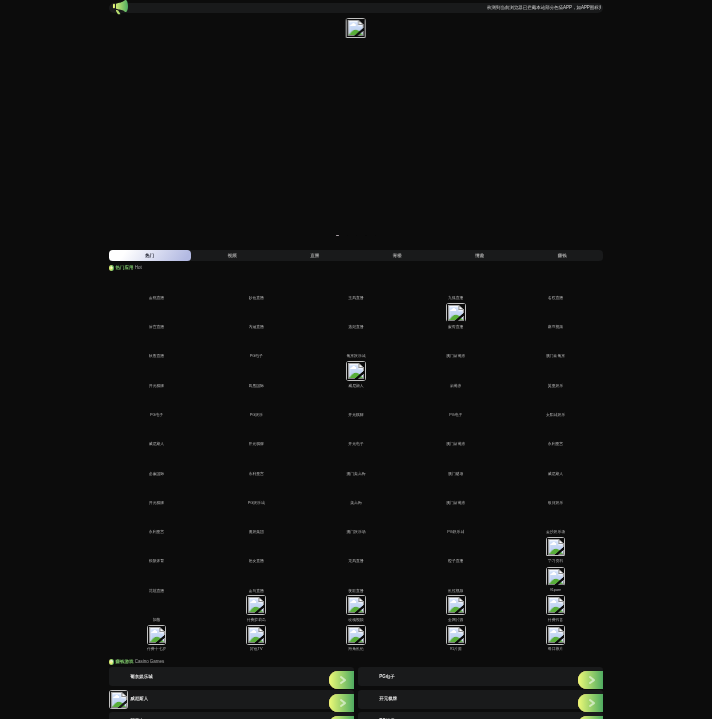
<!DOCTYPE html>
<meta charset="utf-8">
<style>body { margin: 0 } canvas { display: block }</style>
<canvas id="canvas" width="712" height="719"></canvas>
<script type="module">
  const canvas = document.getElementById("canvas");
  const ctx = canvas.getContext("2d");
  ctx.miterLimit = 4;
  ctx.fontKerning = "normal";
  async function loadImage(src) {
    const img = new Image();
    img.src = src;
    await img.decode();
    return img;
  }

  ctx.fillStyle = "#ffffff";
  ctx.fillRect(0, 0, 712, 719);
  ctx.drawImage(await loadImage("img1.png"), 0, 0, 712, 719);
</script>
